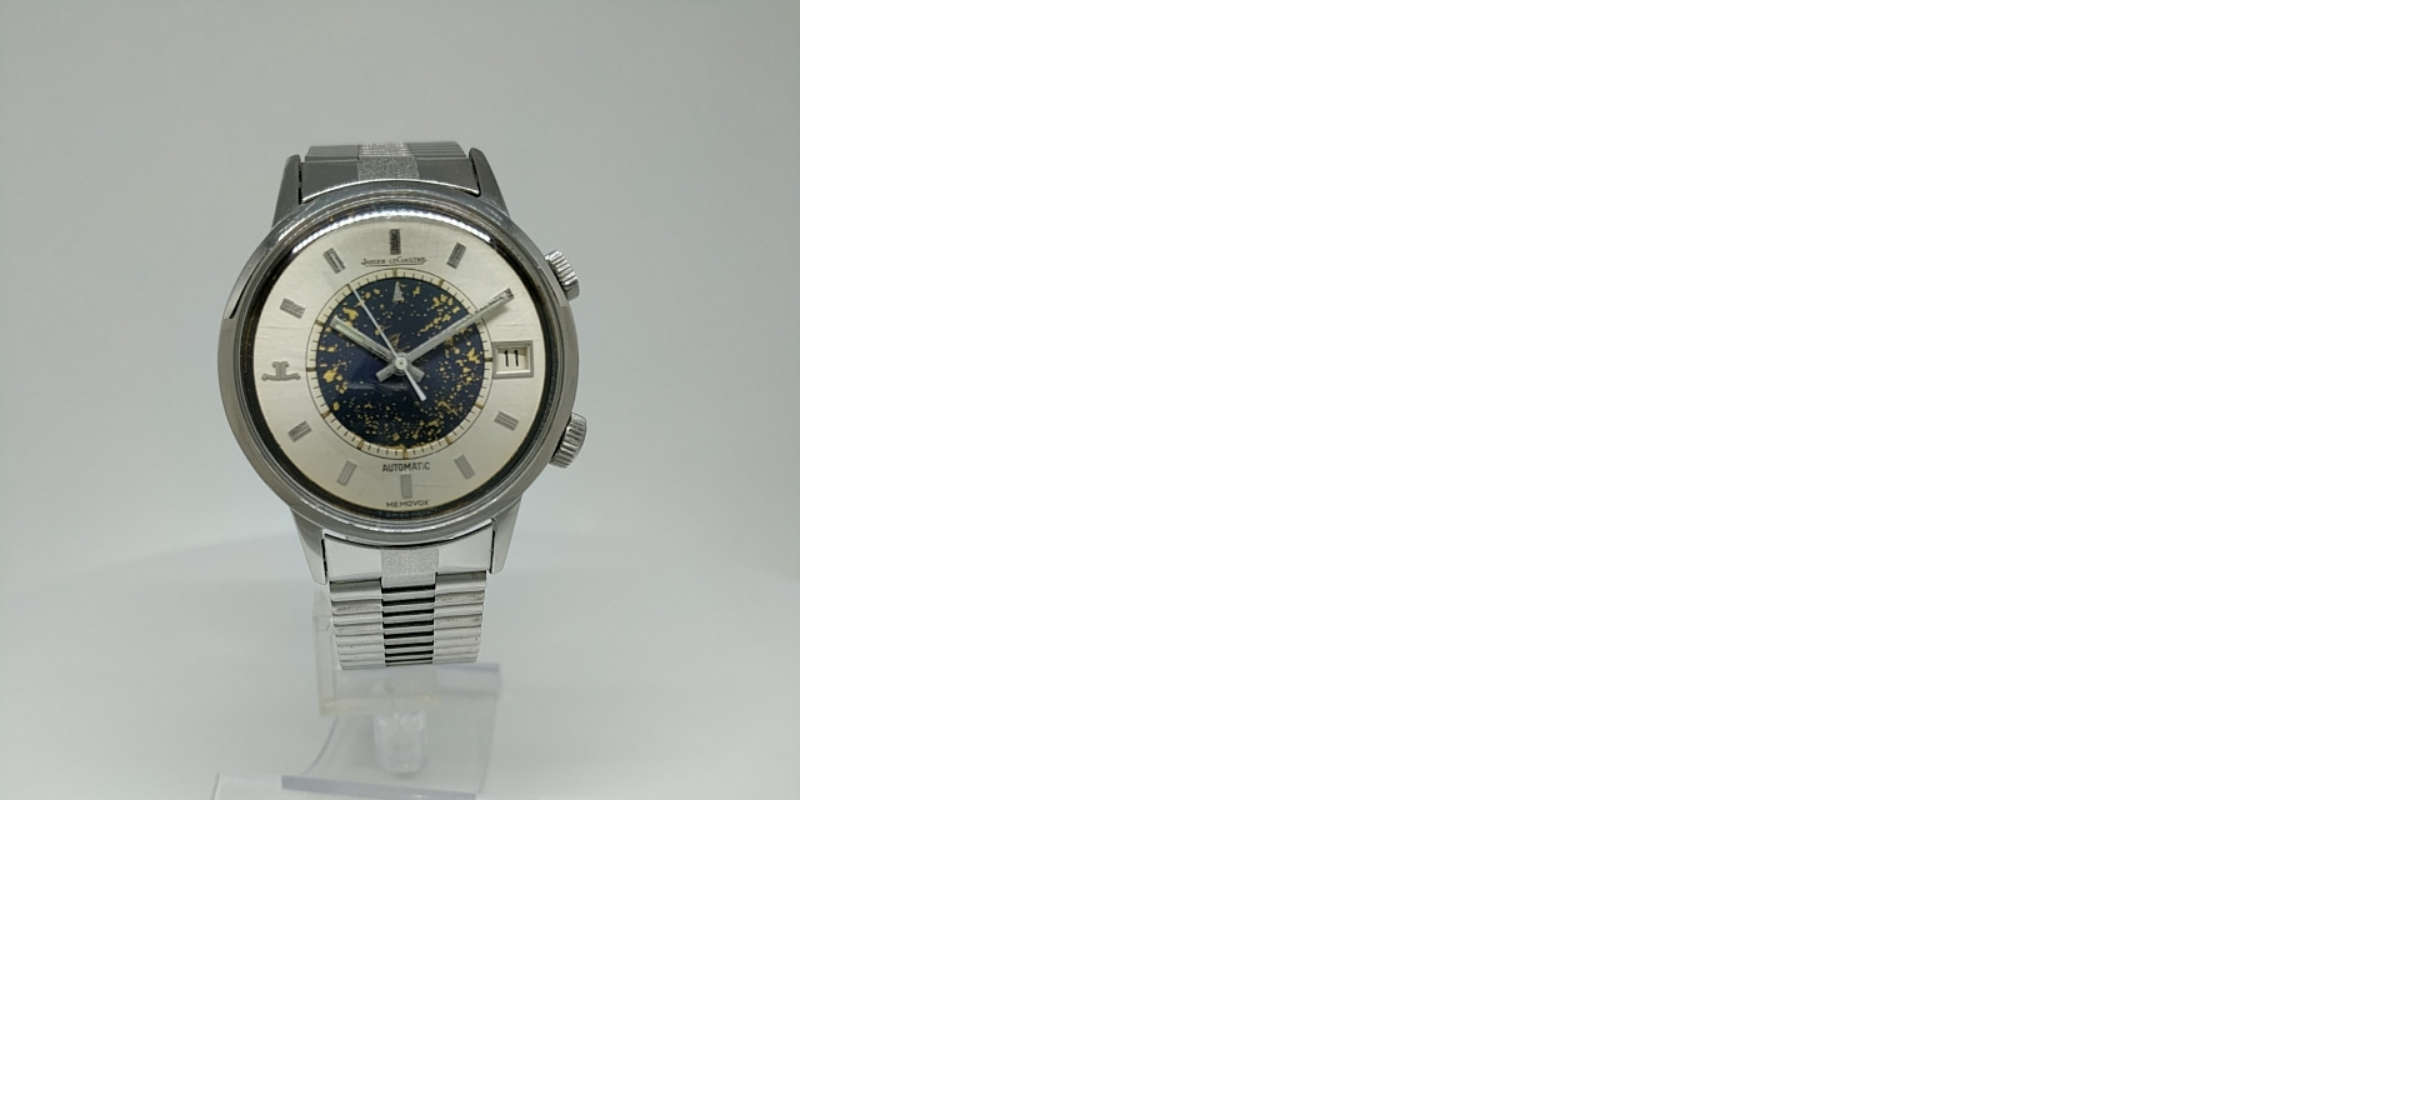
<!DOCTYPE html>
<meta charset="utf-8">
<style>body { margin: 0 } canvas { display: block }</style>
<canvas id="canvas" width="2418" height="1105"></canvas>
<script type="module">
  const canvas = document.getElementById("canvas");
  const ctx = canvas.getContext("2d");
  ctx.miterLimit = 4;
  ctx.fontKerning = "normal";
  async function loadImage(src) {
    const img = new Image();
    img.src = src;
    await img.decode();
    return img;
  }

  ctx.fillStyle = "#ffffff";
  ctx.fillRect(0, 0, 2418, 1105);
  ctx.drawImage(await loadImage("img1.png"), 0, 0, 800, 800);
</script>
